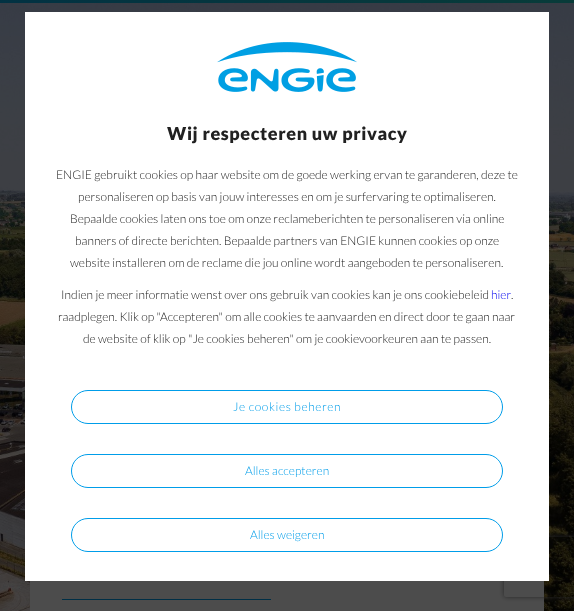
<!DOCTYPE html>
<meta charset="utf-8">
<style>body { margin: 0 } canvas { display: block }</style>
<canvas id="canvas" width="574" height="611"></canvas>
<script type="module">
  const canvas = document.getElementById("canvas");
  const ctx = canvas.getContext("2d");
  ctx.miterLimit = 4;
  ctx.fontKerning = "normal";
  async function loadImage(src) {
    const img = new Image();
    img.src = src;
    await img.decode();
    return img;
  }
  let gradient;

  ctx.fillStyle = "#ffffff";
  ctx.fillRect(0, 0, 574, 611);
  gradient = ctx.createLinearGradient(31, -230, 551, 239);
  gradient.addColorStop(0, "#009de9");
  gradient.addColorStop(1, "#23d2b5");
  ctx.fillStyle = gradient;
  ctx.fillRect(0, 0, 574, 3);
  ctx.drawImage(await loadImage("img1.png"), 0, 3, 574, 608);
  ctx.fillStyle = "#ffffff";
  ctx.fillRect(30, 581, 514, 30);
  ctx.fillStyle = "#009de9";
  ctx.fillRect(62, 599, 209, 1);
  ctx.save();
  ctx.beginPath();
  ctx.moveTo(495, 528);
  ctx.lineTo(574, 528);
  ctx.lineTo(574, 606);
  ctx.lineTo(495, 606);
  ctx.closePath();
  ctx.moveTo(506, 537);
  ctx.lineTo(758, 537);
  ctx.bezierCurveTo(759, 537, 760, 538, 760, 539);
  ctx.lineTo(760, 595);
  ctx.bezierCurveTo(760, 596, 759, 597, 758, 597);
  ctx.lineTo(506, 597);
  ctx.bezierCurveTo(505, 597, 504, 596, 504, 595);
  ctx.lineTo(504, 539);
  ctx.bezierCurveTo(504, 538, 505, 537, 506, 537);
  ctx.closePath();
  ctx.clip("evenodd");
  ctx.fillStyle = "#808080";
  ctx.filter = "blur(2.5px)";
  ctx.beginPath();
  ctx.roundRect(504, 537, 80, 60, 2);
  ctx.fill();
  ctx.filter = "none";
  ctx.restore();
  ctx.fillStyle = "rgba(0, 0, 0, 0.7)";
  ctx.filter = "blur(10px)";
  ctx.beginPath();
  ctx.rect(-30, -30, 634, 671);
  ctx.fill();
  ctx.filter = "none";
  ctx.fillStyle = "#ffffff";
  ctx.fillRect(25, 12, 524, 569);
  ctx.drawImage(await loadImage("img2.png"), 217, 42, 140, 50);
  ctx.letterSpacing = "0.6px";
  ctx.font = "900 18px Lato";
  ctx.fillStyle = "#212121";
  ctx.fillText("Wij respecteren uw privacy", 167, 140);
  ctx.letterSpacing = "0px";
  ctx.font = "300 12px Lato";
  ctx.fillText("ENGIE gebruikt cookies op haar website om de goede werking ervan te garanderen, deze te", 56, 179);
  ctx.fillText("personaliseren op basis van jouw interesses en om je surfervaring te optimaliseren.", 78, 201);
  ctx.fillText("Bepaalde cookies laten ons toe om onze reclameberichten te personaliseren via online", 70, 223);
  ctx.fillText("banners of directe berichten. Bepaalde partners van ENGIE kunnen cookies op onze", 75, 245);
  ctx.fillText("website installeren om de reclame die jou online wordt aangeboden te personaliseren.", 70, 267);
  ctx.fillText("Indien je meer informatie wenst over ons gebruik van cookies kan je ons cookiebeleid", 61, 299);
  ctx.fillStyle = "#0000ee";
  ctx.fillText("hier", 491, 299);
  ctx.fillStyle = "#212121";
  ctx.fillText(".", 511, 299);
  ctx.fillText("raadplegen. Klik op \"Accepteren\" om alle cookies te aanvaarden en direct door te gaan naar", 58, 321);
  ctx.fillText("de website of klik op \"Je cookies beheren\" om je cookievoorkeuren aan te passen.", 83, 343);
  ctx.beginPath();
  ctx.roundRect(71.5, 390.5, 431, 33, 16.5);
  ctx.strokeStyle = "#009de9";
  ctx.stroke();
  ctx.letterSpacing = "0.6px";
  ctx.fillStyle = "#009de9";
  ctx.fillText("Je cookies beheren", 233, 411);
  ctx.beginPath();
  ctx.roundRect(71.5, 454.5, 431, 33, 16.5);
  ctx.stroke();
  ctx.letterSpacing = "0px";
  ctx.fillText("Alles accepteren", 245, 475);
  ctx.beginPath();
  ctx.roundRect(71.5, 518.5, 431, 33, 16.5);
  ctx.stroke();
  ctx.fillText("Alles weigeren", 250, 539);
</script>
